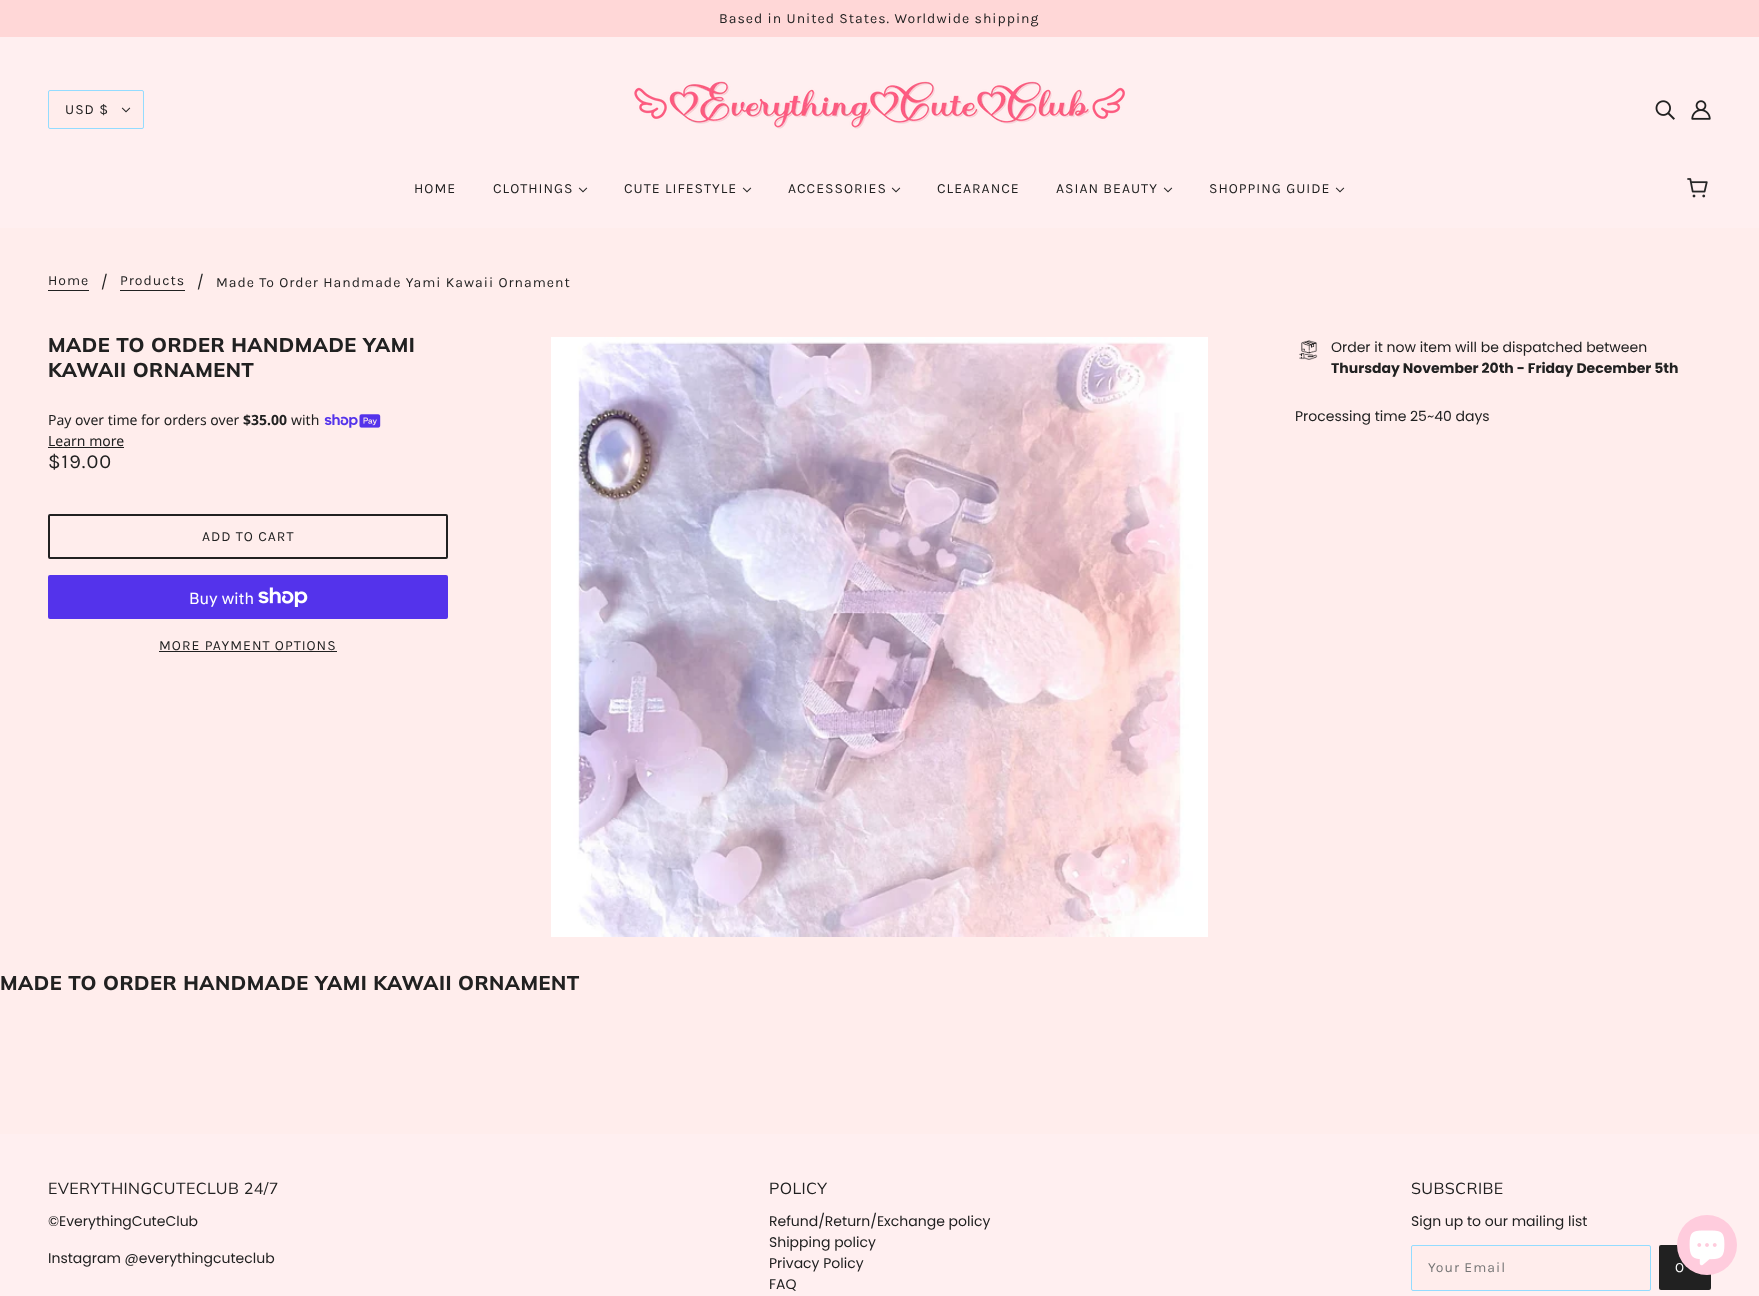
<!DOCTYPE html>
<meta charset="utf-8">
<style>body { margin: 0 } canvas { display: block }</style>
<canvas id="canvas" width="1759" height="1296"></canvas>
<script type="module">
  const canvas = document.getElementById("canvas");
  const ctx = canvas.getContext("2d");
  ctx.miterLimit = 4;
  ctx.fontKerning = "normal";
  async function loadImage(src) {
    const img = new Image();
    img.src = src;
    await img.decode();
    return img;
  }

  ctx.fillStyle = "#ffedec";
  ctx.fillRect(0, 0, 1759, 1296);
  ctx.fillStyle = "#ffd7d7";
  ctx.fillRect(0, 0, 1759, 37);
  ctx.letterSpacing = "1px";
  ctx.font = "14px Karla";
  ctx.fillStyle = "#212121";
  ctx.fillText("Based in United States. Worldwide shipping", 719, 23);
  ctx.fillStyle = "#ffeff0";
  ctx.fillRect(0, 37, 1759, 191);
  ctx.fillStyle = "#ffedec";
  ctx.beginPath();
  ctx.roundRect(48.5, 90.5, 95, 38, 1.5);
  ctx.fill();
  ctx.strokeStyle = "#93dcff";
  ctx.stroke();
  ctx.fillStyle = "#212121";
  ctx.fillText("USD $", 65, 114);
  ctx.drawImage(await loadImage("img1.png"), 121, 107, 10, 6);
  ctx.drawImage(await loadImage("img2.png"), 634, 81, 491, 48);
  ctx.drawImage(await loadImage("img3.png"), 1655, 100, 20, 20);
  ctx.drawImage(await loadImage("img4.png"), 1691, 100, 20, 20);
  ctx.fillText("HOME", 414, 193);
  ctx.fillText("CLOTHINGS", 493, 193);
  ctx.drawImage(await loadImage("img5.png"), 578, 187, 10, 6);
  ctx.fillText("CUTE LIFESTYLE", 624, 193);
  ctx.drawImage(await loadImage("img5.png"), 742, 187, 10, 6);
  ctx.fillText("ACCESSORIES", 788, 193);
  ctx.drawImage(await loadImage("img5.png"), 891, 187, 10, 6);
  ctx.fillText("CLEARANCE", 937, 193);
  ctx.fillText("ASIAN BEAUTY", 1056, 193);
  ctx.drawImage(await loadImage("img5.png"), 1163, 187, 10, 6);
  ctx.fillText("SHOPPING GUIDE", 1209, 193);
  ctx.drawImage(await loadImage("img5.png"), 1335, 187, 10, 6);
  ctx.drawImage(await loadImage("img6.png"), 1687, 178, 21, 20);
  ctx.fillText("Home", 48, 285);
  ctx.fillRect(48, 290, 41, 1);
  ctx.letterSpacing = "0px";
  ctx.font = "14px Poppins";
  ctx.fillText("/", 101, 287);
  ctx.letterSpacing = "1px";
  ctx.font = "14px Karla";
  ctx.fillText("Products", 120, 285);
  ctx.fillRect(120, 290, 65, 1);
  ctx.letterSpacing = "0px";
  ctx.font = "14px Poppins";
  ctx.fillText("/", 197, 287);
  ctx.letterSpacing = "1px";
  ctx.font = "14px Karla";
  ctx.fillText("Made To Order Handmade Yami Kawaii Ornament", 216, 287);
  ctx.letterSpacing = "0.5px";
  ctx.font = "800 20px Muli";
  ctx.fillText("MADE TO ORDER HANDMADE YAMI", 48, 352);
  ctx.fillText("KAWAII ORNAMENT", 48, 377);
  ctx.drawImage(await loadImage("img7.png"), 551, 337, 657, 600);
  ctx.drawImage(await loadImage("img8.png"), 1299, 340, 19, 20);
  ctx.letterSpacing = "0px";
  ctx.font = "14px Poppins";
  ctx.fillText("Order it now item will be dispatched between", 1331, 352);
  ctx.font = "bold 14px Poppins";
  ctx.fillText("Thursday November 20th - Friday December 5th", 1331, 373);
  ctx.font = "14px Noto Sans";
  ctx.fillText("Pay over time for orders over", 48, 425);
  ctx.font = "bold 14px Noto Sans";
  ctx.fillText("$35.00", 243, 425);
  ctx.font = "14px Noto Sans";
  ctx.fillText("with", 291, 425);
  ctx.drawImage(await loadImage("img9.png"), 324, 414, 57, 14);
  ctx.fillText("Learn more", 48, 446);
  ctx.fillRect(48, 447, 76, 1);
  ctx.letterSpacing = "1px";
  ctx.font = "20px Karla";
  ctx.fillText("$19.00", 48, 468);
  ctx.beginPath();
  ctx.roundRect(49, 515, 398, 43, 1);
  ctx.strokeStyle = "#212121";
  ctx.lineWidth = 2;
  ctx.stroke();
  ctx.font = "14px Karla";
  ctx.fillText("ADD TO CART", 202, 541);
  ctx.fillStyle = "#5433eb";
  ctx.beginPath();
  ctx.roundRect(48, 575, 400, 44, 2);
  ctx.fill();
  ctx.letterSpacing = "0px";
  ctx.font = "16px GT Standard";
  ctx.fillStyle = "#ffffff";
  ctx.fillText("Buy with", 189, 604);
  ctx.drawImage(await loadImage("img10.png"), 258, 587, 50, 20);
  ctx.letterSpacing = "1px";
  ctx.font = "14px Karla";
  ctx.fillStyle = "#212121";
  ctx.fillText("MORE PAYMENT OPTIONS", 159, 650);
  ctx.fillRect(159, 651, 178, 1);
  ctx.letterSpacing = "0px";
  ctx.font = "14px Poppins";
  ctx.fillText("Processing time 25~40 days", 1295, 421);
  ctx.letterSpacing = "0.5px";
  ctx.font = "800 20px Muli";
  ctx.fillText("MADE TO ORDER HANDMADE YAMI KAWAII ORNAMENT", 0, 990);
  ctx.fillStyle = "#ffeff0";
  ctx.fillRect(0, 1134, 1759, 162);
  ctx.letterSpacing = "0.4px";
  ctx.font = "16px Muli";
  ctx.fillStyle = "#212121";
  ctx.fillText("EVERYTHINGCUTECLUB 24/7", 48, 1194);
  ctx.letterSpacing = "0px";
  ctx.font = "14px Poppins";
  ctx.fillText("©EverythingCuteClub", 48, 1226);
  ctx.fillText("Instagram @everythingcuteclub", 48, 1263);
  ctx.letterSpacing = "0.4px";
  ctx.font = "16px Muli";
  ctx.fillText("POLICY", 769, 1194);
  ctx.letterSpacing = "0px";
  ctx.font = "14px Poppins";
  ctx.fillText("Refund/Return/Exchange policy", 769, 1226);
  ctx.fillText("Shipping policy", 769, 1247);
  ctx.fillText("Privacy Policy", 769, 1268);
  ctx.fillText("FAQ", 769, 1289);
  ctx.letterSpacing = "0.4px";
  ctx.font = "16px Muli";
  ctx.fillText("SUBSCRIBE", 1411, 1194);
  ctx.letterSpacing = "0px";
  ctx.font = "14px Poppins";
  ctx.fillText("Sign up to our mailing list", 1411, 1226);
  ctx.fillStyle = "#ffedec";
  ctx.beginPath();
  ctx.roundRect(1411.5, 1245.5, 239, 45, 1.5);
  ctx.fill();
  ctx.strokeStyle = "#93dcff";
  ctx.lineWidth = 1;
  ctx.stroke();
  ctx.letterSpacing = "1px";
  ctx.font = "14px Karla";
  ctx.fillStyle = "#757575";
  ctx.fillText("Your Email", 1428, 1272);
  ctx.fillStyle = "#212121";
  ctx.beginPath();
  ctx.roundRect(1659, 1245, 52, 45, 2);
  ctx.fill();
  ctx.fillStyle = "#ffffff";
  ctx.fillText("O", 1675, 1272);
  ctx.fillStyle = "#ffccdd";
  ctx.beginPath();
  ctx.arc(1707, 1245, 30, 0, Math.PI * 2);
  ctx.fill();
  ctx.drawImage(await loadImage("img11.png"), 1689, 1230, 36, 36);
</script>
